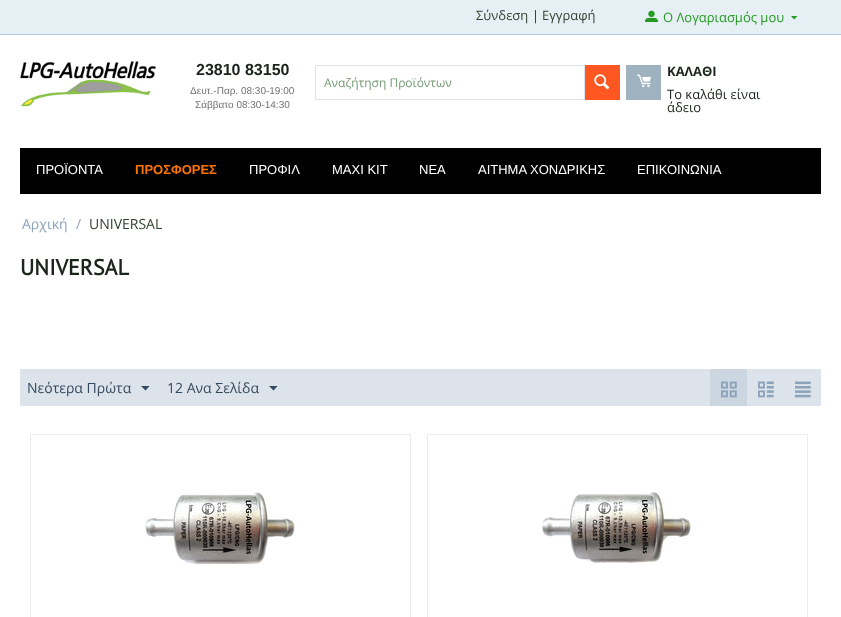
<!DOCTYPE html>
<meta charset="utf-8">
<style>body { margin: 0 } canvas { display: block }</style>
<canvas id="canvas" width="841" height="617"></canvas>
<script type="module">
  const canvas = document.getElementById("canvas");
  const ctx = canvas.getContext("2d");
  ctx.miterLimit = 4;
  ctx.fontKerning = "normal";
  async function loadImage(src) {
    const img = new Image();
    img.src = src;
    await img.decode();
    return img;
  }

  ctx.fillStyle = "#ffffff";
  ctx.fillRect(0, 0, 841, 617);
  ctx.fillStyle = "#e6eff4";
  ctx.fillRect(0, 0, 841, 34);
  ctx.fillStyle = "#b1cddd";
  ctx.fillRect(0, 34, 841, 1);
  ctx.font = "13px Open Sans";
  ctx.fillStyle = "#304230";
  ctx.fillText("Σύνδεση", 476, 20);
  ctx.fillStyle = "#1b251b";
  ctx.fillText("|", 532, 20);
  ctx.fillStyle = "#304230";
  ctx.fillText("Εγγραφή", 542, 20);
  ctx.drawImage(await loadImage("img1.png"), 645, 10, 13, 12);
  ctx.fillStyle = "#259b24";
  ctx.fillText("Ο Λογαριασμός μου", 663, 22);
  ctx.beginPath();
  ctx.moveTo(794, 19.5);
  ctx.lineTo(791, 16);
  ctx.lineTo(797.5, 16);
  ctx.closePath();
  ctx.fill();
  ctx.drawImage(await loadImage("img2.png"), 20, 61, 136, 46);
  ctx.font = "bold 16px Liberation Sans";
  ctx.fillStyle = "#1b251b";
  ctx.fillText("23810 83150", 196, 75);
  ctx.font = "10px Liberation Sans";
  ctx.fillStyle = "#727272";
  ctx.fillText("Δευτ.-Παρ. 08:30-19:00", 190, 94);
  ctx.fillText("Σάββατο 08:30-14:30", 195, 108);
  ctx.strokeStyle = "#dce3ea";
  ctx.strokeRect(315.5, 65.5, 269, 34);
  ctx.font = "12px Open Sans";
  ctx.fillStyle = "#739973";
  ctx.fillText("Αναζήτηση Προϊόντων", 324, 87);
  ctx.fillStyle = "#ff5722";
  ctx.fillRect(585, 65, 35, 35);
  ctx.drawImage(await loadImage("img3.png"), 594, 74, 16, 16);
  ctx.fillStyle = "#9fb2c0";
  ctx.fillRect(626, 65, 35, 35);
  ctx.drawImage(await loadImage("img4.png"), 637, 74, 14, 14);
  ctx.font = "bold 13px Open Sans";
  ctx.fillStyle = "#1b251b";
  ctx.fillText("ΚΑΛΑΘΙ", 667, 76);
  ctx.font = "13px Open Sans";
  ctx.fillText("Το καλάθι είναι", 667, 99);
  ctx.fillText("άδειο", 667, 112);
  ctx.fillStyle = "#000000";
  ctx.fillRect(20, 148, 801, 46);
  ctx.font = "13px Liberation Sans";
  ctx.fillStyle = "#ffffff";
  ctx.fillText("ΠΡΟΪΟΝΤΑ", 36, 174);
  ctx.font = "bold 13px Liberation Sans";
  ctx.fillStyle = "#fe7400";
  ctx.fillText("ΠΡΟΣΦΟΡΕΣ", 135, 174);
  ctx.font = "13px Liberation Sans";
  ctx.fillStyle = "#ffffff";
  ctx.fillText("ΠΡΟΦΙΛ", 249, 174);
  ctx.fillText("MAXI KIT", 332, 174);
  ctx.fillText("ΝΕΑ", 419, 174);
  ctx.fillText("ΑΙΤΗΜΑ ΧΟΝΔΡΙΚΗΣ", 478, 174);
  ctx.fillText("ΕΠΙΚΟΙΝΩΝΙΑ", 637, 174);
  ctx.font = "14px Open Sans";
  ctx.fillStyle = "#8ca3ba";
  ctx.fillText("Αρχική", 22, 229);
  ctx.fillText("/", 76, 229);
  ctx.fillStyle = "#304230";
  ctx.fillText("UNIVERSAL", 89, 229);
  ctx.font = "bold 22px PT Sans";
  ctx.fillStyle = "#1b251b";
  ctx.fillText("UNIVERSAL", 20, 275);
  ctx.fillStyle = "#dce3ea";
  ctx.fillRect(20, 369, 801, 37);
  ctx.font = "14px Open Sans";
  ctx.fillStyle = "#34495e";
  ctx.fillText("Νεότερα Πρώτα", 27, 393);
  ctx.beginPath();
  ctx.moveTo(145.5, 390.5);
  ctx.lineTo(141, 386);
  ctx.lineTo(149.5, 386);
  ctx.closePath();
  ctx.fill();
  ctx.fillText("12 Ανα Σελίδα", 167, 393);
  ctx.beginPath();
  ctx.moveTo(273.5, 390.5);
  ctx.lineTo(269, 386);
  ctx.lineTo(277.5, 386);
  ctx.closePath();
  ctx.fill();
  ctx.fillStyle = "#ccd6e0";
  ctx.fillRect(710, 369, 37, 37);
  ctx.drawImage(await loadImage("img5.png"), 721, 381, 16, 17);
  ctx.drawImage(await loadImage("img6.png"), 758, 381, 16, 17);
  ctx.drawImage(await loadImage("img7.png"), 795, 381, 16, 17);
  ctx.strokeStyle = "#ebebeb";
  ctx.strokeRect(30.5, 434.5, 380, 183);
  ctx.drawImage(await loadImage("img8.png"), 145, 492, 150, 72);
  ctx.strokeRect(427.5, 434.5, 380, 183);
  ctx.drawImage(await loadImage("img9.png"), 542, 492, 149, 71);
</script>
